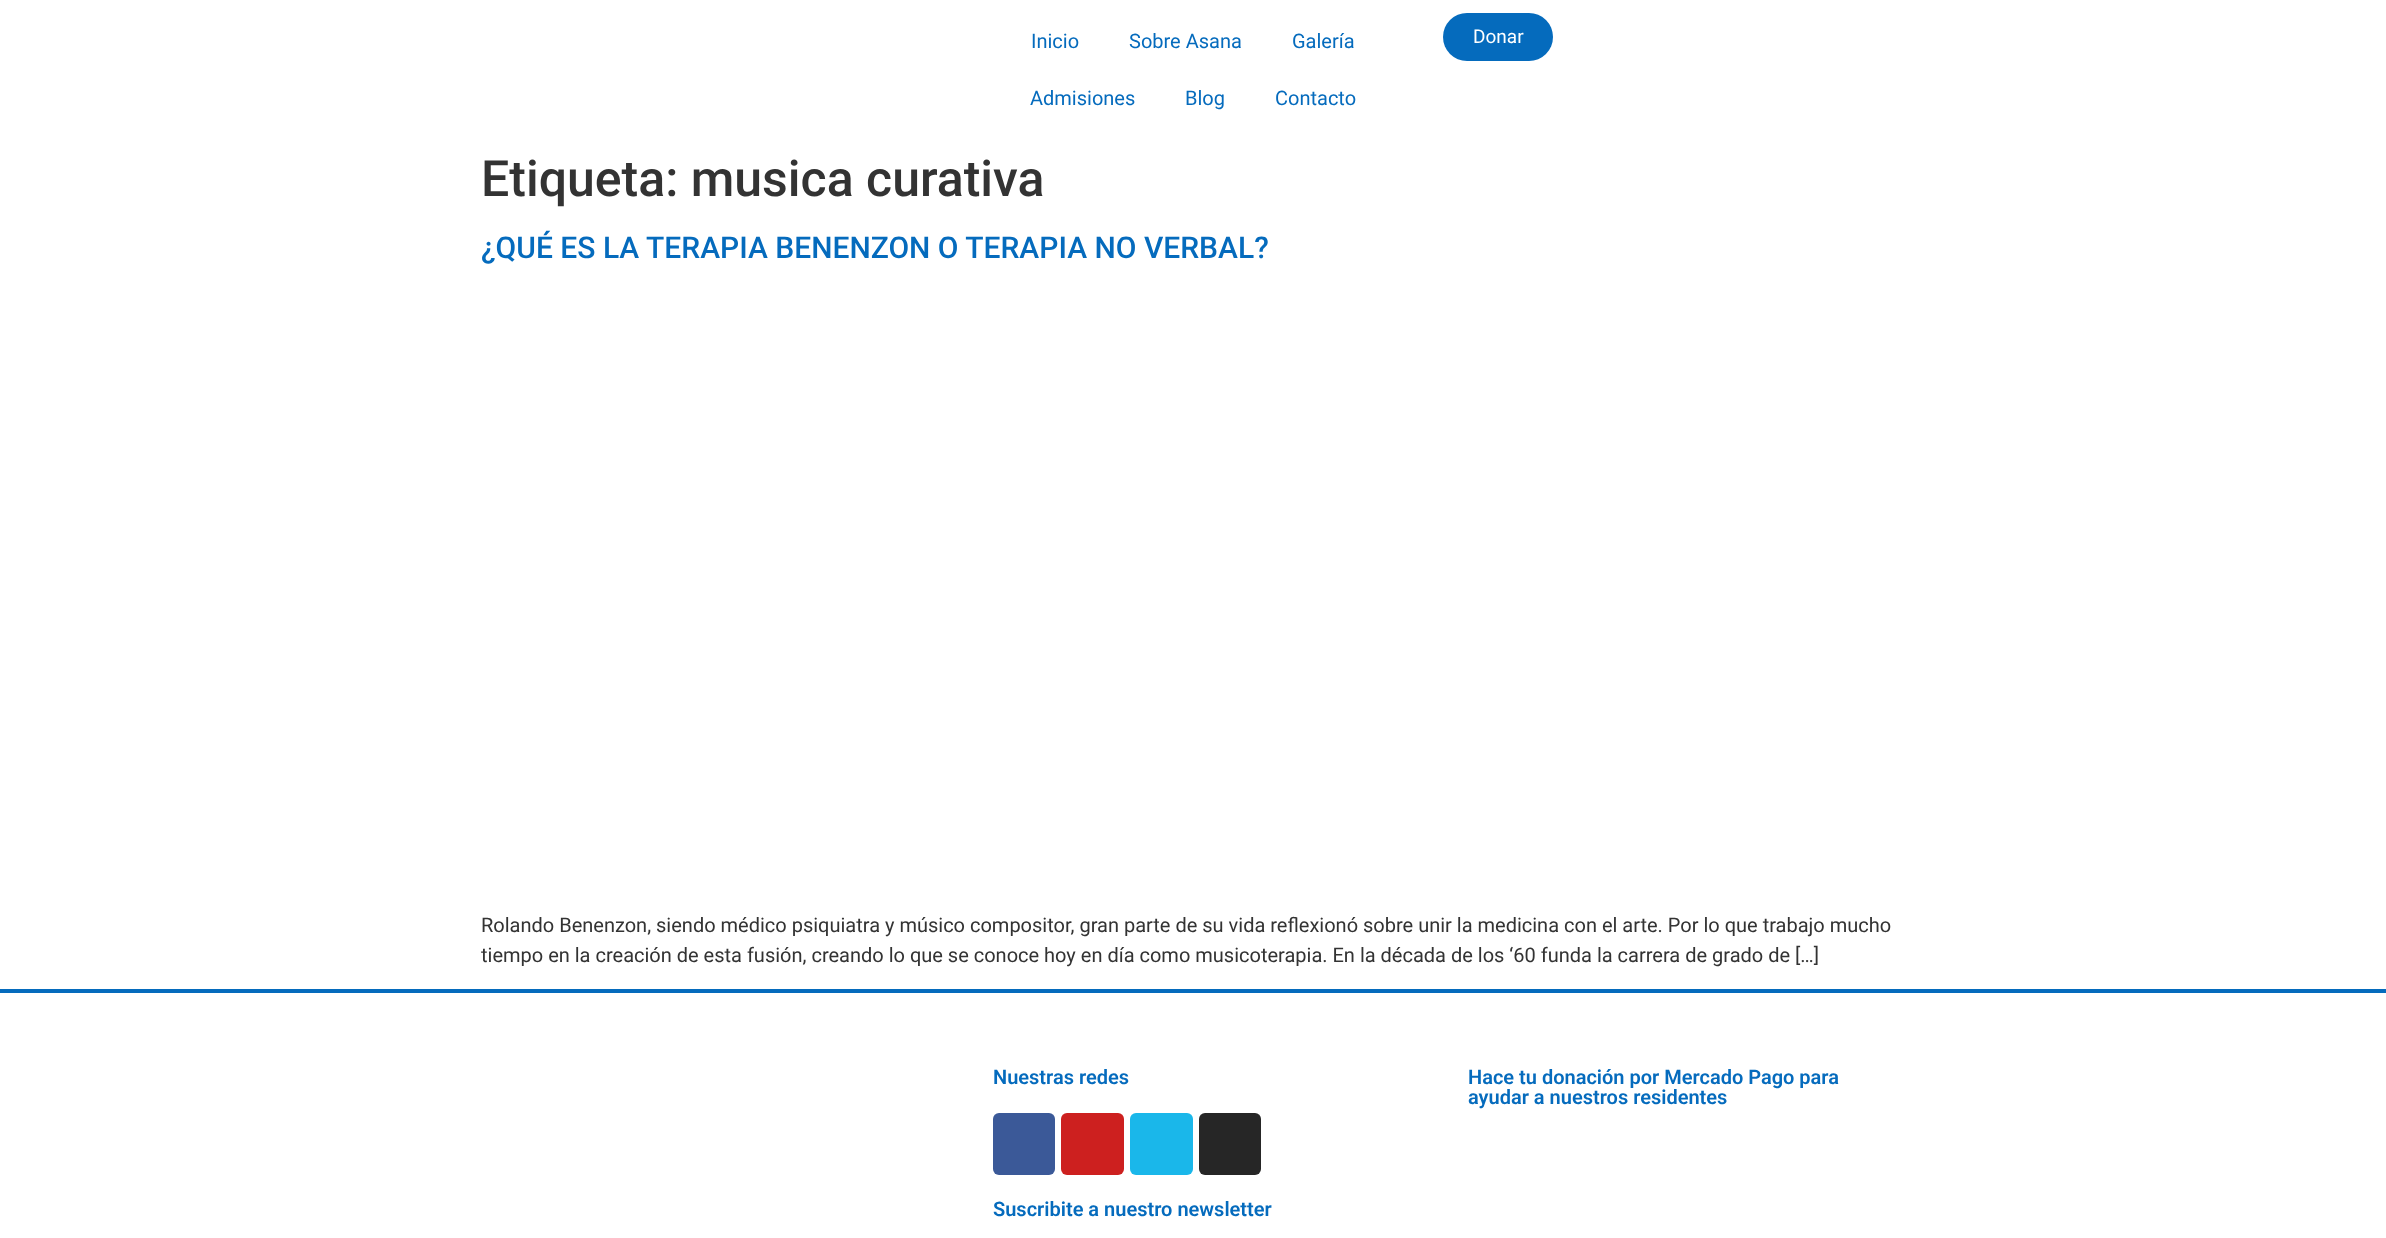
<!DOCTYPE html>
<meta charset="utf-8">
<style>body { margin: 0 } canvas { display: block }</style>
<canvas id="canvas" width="2386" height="1238"></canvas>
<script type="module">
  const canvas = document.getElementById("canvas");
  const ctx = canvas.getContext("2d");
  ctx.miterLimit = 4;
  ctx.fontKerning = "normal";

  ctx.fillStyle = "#ffffff";
  ctx.fillRect(0, 0, 2386, 1238);
  ctx.font = "20px Roboto";
  ctx.fillStyle = "#056bbd";
  ctx.fillText("Inicio", 1031, 48);
  ctx.fillText("Sobre Asana", 1129, 48);
  ctx.fillText("Galería", 1292, 48);
  ctx.fillText("Admisiones", 1030, 105);
  ctx.fillText("Blog", 1185, 105);
  ctx.fillText("Contacto", 1275, 105);
  ctx.beginPath();
  ctx.roundRect(1443, 13, 110, 48, 24);
  ctx.fill();
  ctx.font = "19px Roboto";
  ctx.fillStyle = "#ffffff";
  ctx.fillText("Donar", 1473, 43);
  ctx.font = "500 50px Roboto";
  ctx.fillStyle = "#333333";
  ctx.fillText("Etiqueta: musica curativa", 481, 196);
  ctx.font = "500 30px Roboto";
  ctx.fillStyle = "#056bbd";
  ctx.fillText("¿QUÉ ES LA TERAPIA BENENZON O TERAPIA NO VERBAL?", 481, 258);
  ctx.font = "20px Roboto";
  ctx.fillStyle = "#333333";
  ctx.fillText("Rolando Benenzon, siendo médico psiquiatra y músico compositor, gran parte de su vida reflexionó sobre unir la medicina con el arte. Por lo que trabajo mucho", 481, 932);
  ctx.fillText("tiempo en la creación de esta fusión, creando lo que se conoce hoy en día como musicoterapia. En la década de los ‘60 funda la carrera de grado de […]", 481, 962);
  ctx.fillStyle = "#056bbd";
  ctx.fillRect(0, 989, 2386, 4);
  ctx.font = "600 20px Roboto";
  ctx.fillText("Nuestras redes", 993, 1084);
  ctx.fillStyle = "#3b5998";
  ctx.beginPath();
  ctx.roundRect(993, 1113, 62, 62, 6);
  ctx.fill();
  ctx.fillStyle = "#cd201f";
  ctx.beginPath();
  ctx.roundRect(1061, 1113, 63, 62, 6);
  ctx.fill();
  ctx.fillStyle = "#1ab7ea";
  ctx.beginPath();
  ctx.roundRect(1130, 1113, 63, 62, 6);
  ctx.fill();
  ctx.fillStyle = "#262626";
  ctx.beginPath();
  ctx.roundRect(1199, 1113, 62, 62, 6);
  ctx.fill();
  ctx.fillStyle = "#056bbd";
  ctx.fillText("Suscribite a nuestro newsletter", 993, 1216);
  ctx.fillText("Hace tu donación por Mercado Pago para", 1468, 1084);
  ctx.fillText("ayudar a nuestros residentes", 1468, 1104);
</script>
